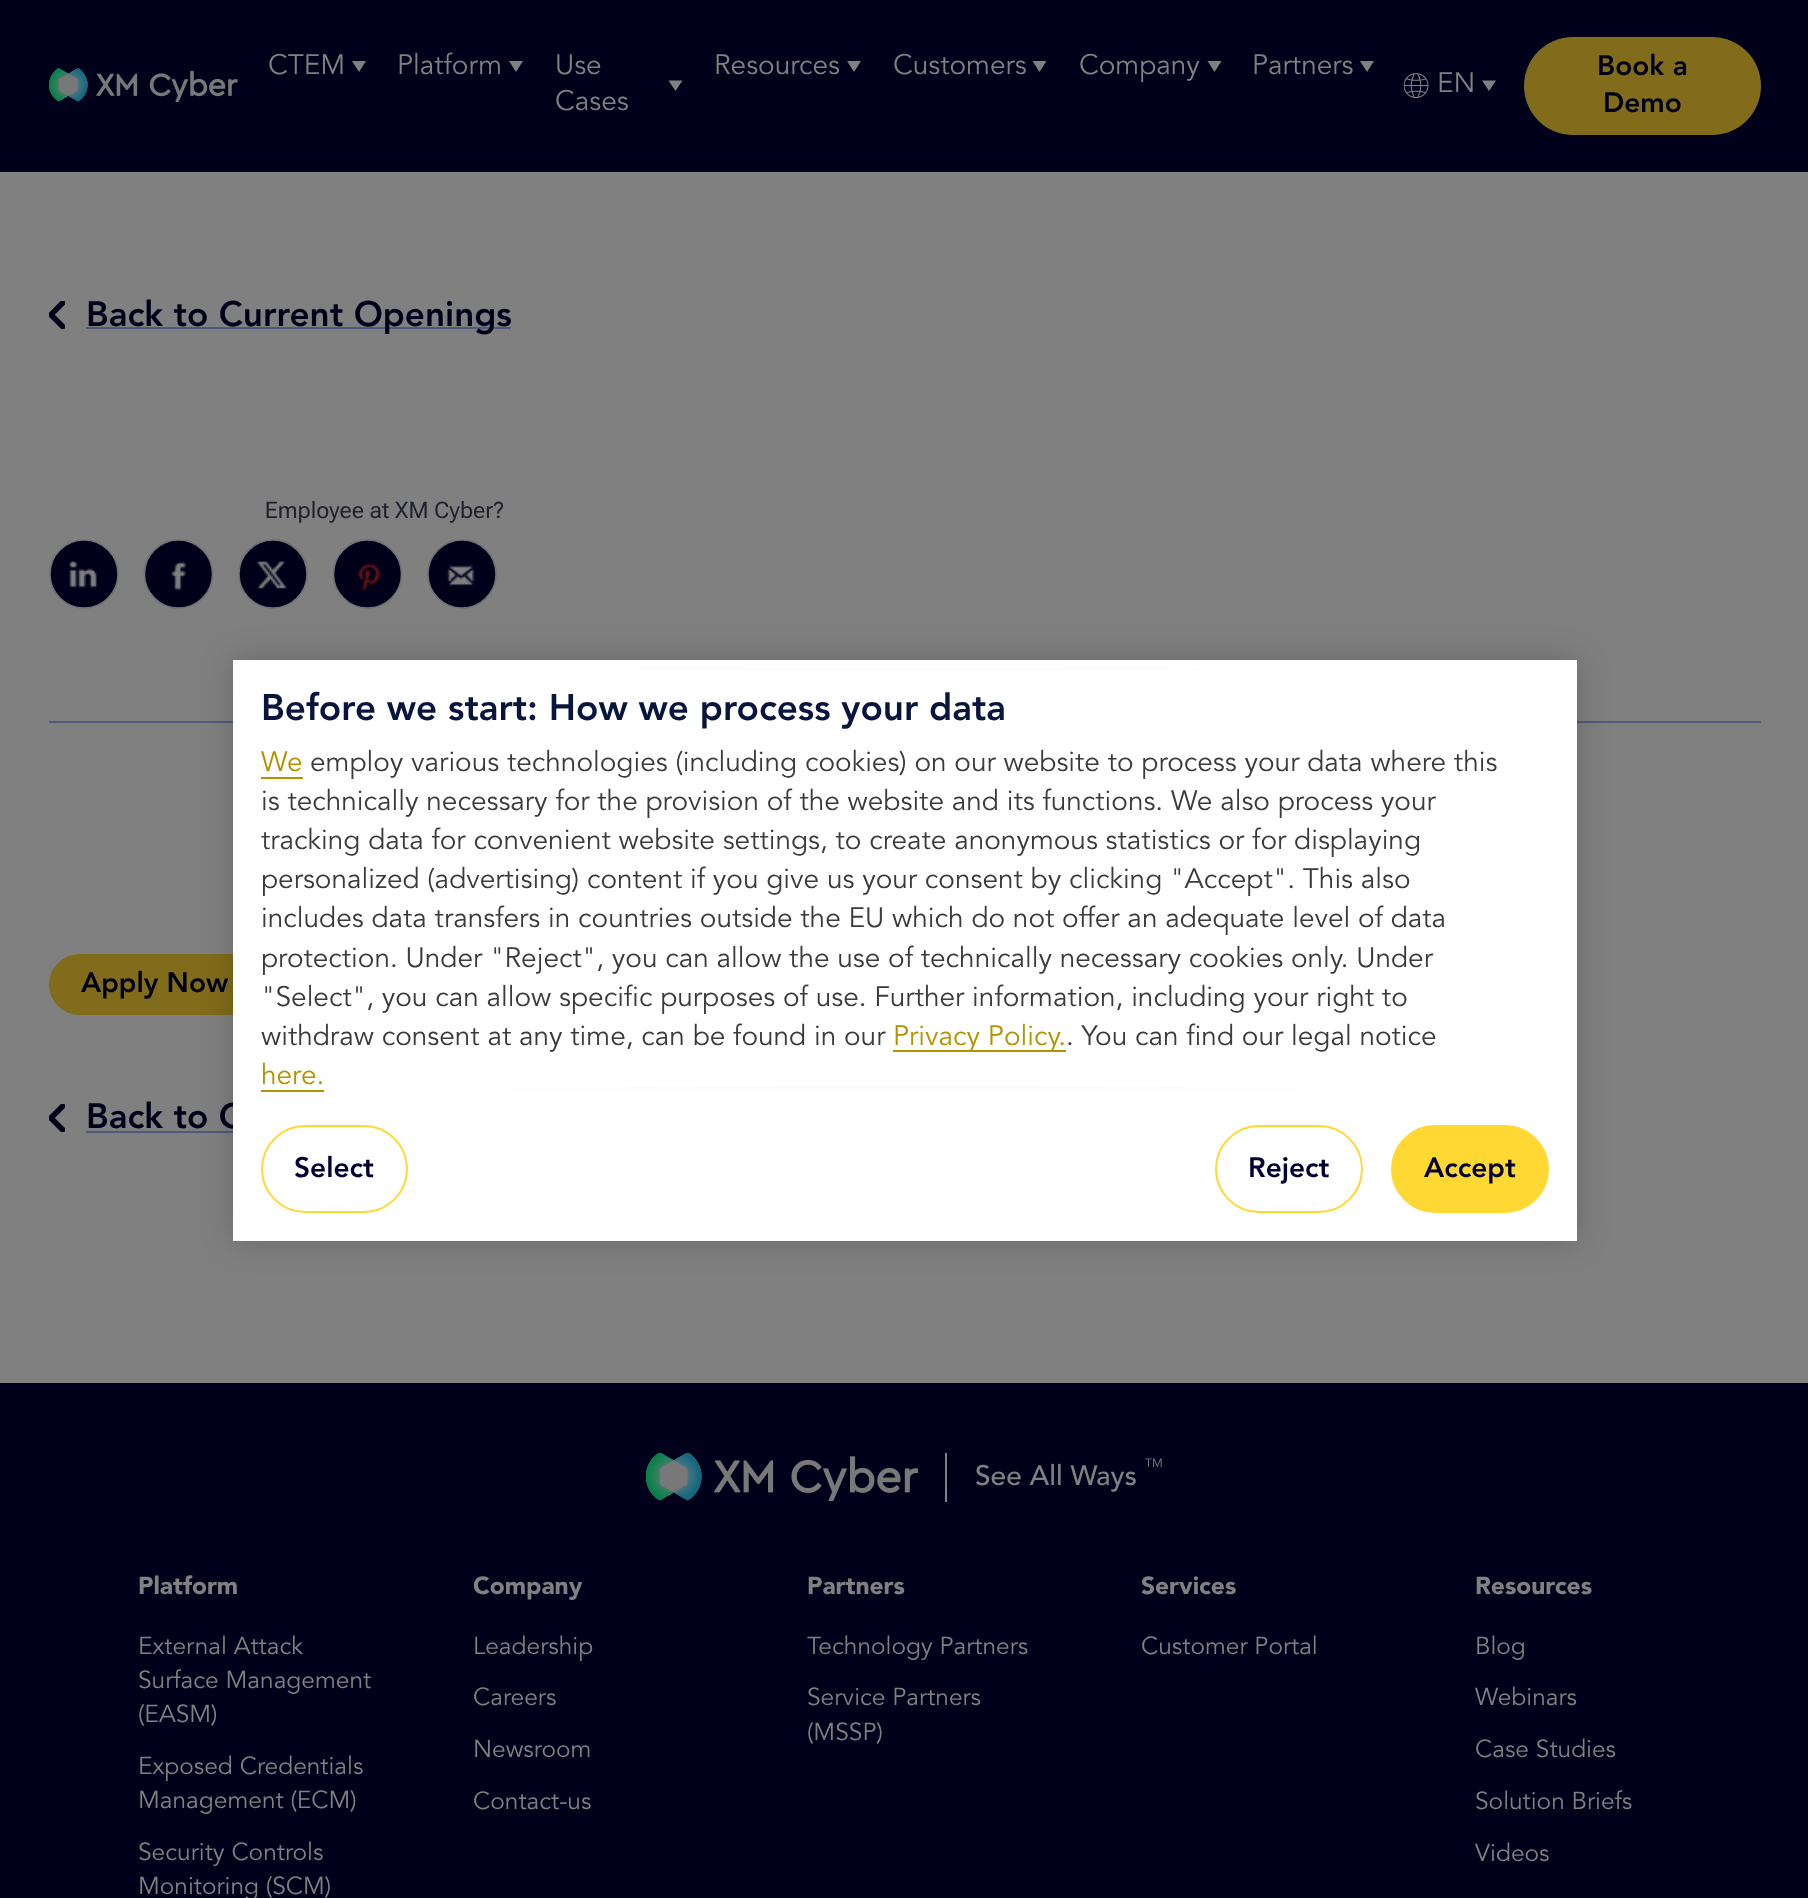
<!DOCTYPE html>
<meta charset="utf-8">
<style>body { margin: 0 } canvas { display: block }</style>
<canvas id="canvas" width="1808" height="1898"></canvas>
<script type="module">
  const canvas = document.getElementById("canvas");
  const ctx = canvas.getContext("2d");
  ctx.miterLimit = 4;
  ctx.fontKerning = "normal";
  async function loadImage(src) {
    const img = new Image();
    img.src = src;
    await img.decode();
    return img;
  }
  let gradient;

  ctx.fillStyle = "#808080";
  ctx.fillRect(0, 0, 1808, 1898);
  ctx.fillStyle = "#00001a";
  ctx.fillRect(0, 0, 1808, 172);
  ctx.drawImage(await loadImage("img1.png"), 49, 68, 189, 34);
  ctx.font = "28px Avenir";
  ctx.fillStyle = "#808080";
  ctx.fillText("CTEM", 268, 74);
  ctx.beginPath();
  ctx.moveTo(352, 61);
  ctx.lineTo(366, 61);
  ctx.lineTo(359, 72);
  ctx.closePath();
  ctx.fill();
  ctx.fillText("Platform", 397, 74);
  ctx.beginPath();
  ctx.moveTo(509, 61);
  ctx.lineTo(523, 61);
  ctx.lineTo(516, 72);
  ctx.closePath();
  ctx.fill();
  ctx.fillText("Use", 555, 74);
  ctx.beginPath();
  ctx.moveTo(668.5, 80.5);
  ctx.lineTo(682.5, 80.5);
  ctx.lineTo(675.5, 91);
  ctx.closePath();
  ctx.fill();
  ctx.fillText("Cases", 555, 110);
  ctx.fillText("Resources", 714, 74);
  ctx.beginPath();
  ctx.moveTo(847, 61);
  ctx.lineTo(861, 61);
  ctx.lineTo(854, 72);
  ctx.closePath();
  ctx.fill();
  ctx.fillText("Customers", 893, 74);
  ctx.beginPath();
  ctx.moveTo(1032.5, 61);
  ctx.lineTo(1046.5, 61);
  ctx.lineTo(1039.5, 72);
  ctx.closePath();
  ctx.fill();
  ctx.fillText("Company", 1079, 74);
  ctx.beginPath();
  ctx.moveTo(1207.5, 61);
  ctx.lineTo(1221.5, 61);
  ctx.lineTo(1214.5, 72);
  ctx.closePath();
  ctx.fill();
  ctx.fillText("Partners", 1252, 74);
  ctx.beginPath();
  ctx.moveTo(1360, 61);
  ctx.lineTo(1374, 61);
  ctx.lineTo(1367, 72);
  ctx.closePath();
  ctx.fill();
  ctx.drawImage(await loadImage("img2.png"), 1404, 73, 25, 26);
  ctx.fillText("EN", 1437, 92);
  ctx.beginPath();
  ctx.moveTo(1482, 80.5);
  ctx.lineTo(1496, 80.5);
  ctx.lineTo(1489, 91);
  ctx.closePath();
  ctx.fill();
  ctx.fillStyle = "#806c1a";
  ctx.beginPath();
  ctx.roundRect(1524, 37, 237, 98, 49);
  ctx.fill();
  ctx.font = "900 28px Avenir";
  ctx.fillStyle = "#00001a";
  ctx.fillText("Book a", 1597, 75);
  ctx.fillText("Demo", 1603, 112);
  ctx.drawImage(await loadImage("img3.png"), 49, 301, 16, 28);
  ctx.fillStyle = "#4f5a7d";
  ctx.fillRect(86, 327, 425, 2);
  ctx.font = "900 35px Avenir";
  ctx.fillStyle = "#00001a";
  ctx.fillText("Back to Current Openings", 86, 326);
  ctx.fillStyle = "#4f5a7d";
  ctx.fillRect(49, 721, 1712, 2);
  ctx.drawImage(await loadImage("img4.png"), 49, 500, 454, 109);
  ctx.fillStyle = "#806c1a";
  ctx.beginPath();
  ctx.roundRect(49, 954, 210, 61, 30.5);
  ctx.fill();
  ctx.font = "900 28px Avenir";
  ctx.fillStyle = "#00001a";
  ctx.fillText("Apply Now", 81, 992);
  ctx.drawImage(await loadImage("img5.png"), 49, 1104, 16, 28);
  ctx.font = "900 35px Avenir";
  ctx.fillText("Back to C", 86, 1128);
  ctx.fillStyle = "#4f5a7d";
  ctx.fillRect(86, 1131, 147, 2);
  ctx.fillStyle = "#00001a";
  ctx.fillRect(0, 1383, 1808, 515);
  ctx.drawImage(await loadImage("img6.png"), 646, 1453, 272, 48);
  ctx.fillStyle = "#808080";
  ctx.fillRect(945, 1453, 2, 49);
  ctx.font = "500 28px Avenir";
  ctx.fillText("See All Ways", 975, 1485);
  ctx.font = "12px Avenir";
  ctx.fillText("TM", 1145, 1467);
  ctx.font = "900 24.5px 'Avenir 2'";
  ctx.fillText("Platform", 138, 1594);
  ctx.font = "24.5px Avenir";
  ctx.fillText("External Attack", 138, 1654);
  ctx.fillText("Surface Management", 138, 1688);
  ctx.fillText("(EASM)", 138, 1722);
  ctx.fillText("Exposed Credentials", 138, 1774);
  ctx.fillText("Management (ECM)", 138, 1808);
  ctx.fillText("Security Controls", 138, 1860);
  ctx.fillText("Monitoring (SCM)", 138, 1894);
  ctx.font = "900 24.5px 'Avenir 2'";
  ctx.fillText("Company", 473, 1594);
  ctx.font = "24.5px Avenir";
  ctx.fillText("Leadership", 473, 1654);
  ctx.fillText("Careers", 473, 1705);
  ctx.fillText("Newsroom", 473, 1757);
  ctx.fillText("Contact-us", 473, 1809);
  ctx.font = "900 24.5px 'Avenir 2'";
  ctx.fillText("Partners", 807, 1594);
  ctx.font = "24.5px Avenir";
  ctx.fillText("Technology Partners", 807, 1654);
  ctx.fillText("Service Partners", 807, 1705);
  ctx.fillText("(MSSP)", 807, 1740);
  ctx.font = "900 24.5px 'Avenir 2'";
  ctx.fillText("Services", 1141, 1594);
  ctx.font = "24.5px Avenir";
  ctx.fillText("Customer Portal", 1141, 1654);
  ctx.font = "900 24.5px 'Avenir 2'";
  ctx.fillText("Resources", 1475, 1594);
  ctx.font = "24.5px Avenir";
  ctx.fillText("Blog", 1475, 1654);
  ctx.fillText("Webinars", 1475, 1705);
  ctx.fillText("Case Studies", 1475, 1757);
  ctx.fillText("Solution Briefs", 1475, 1809);
  ctx.fillText("Videos", 1475, 1861);
  ctx.fillStyle = "rgba(0, 0, 0, 0.2)";
  ctx.filter = "blur(16px)";
  ctx.beginPath();
  ctx.roundRect(233, 660, 1344, 581, 4);
  ctx.fill();
  ctx.filter = "none";
  ctx.fillStyle = "#ffffff";
  ctx.fillRect(233, 674, 1344, 567);
  gradient = ctx.createRadialGradient(905, 52656, 0, 905, 52656, 672);
  gradient.addColorStop(0, "#f2f2f2");
  gradient.addColorStop(1, "#ffffff");
  ctx.fillStyle = gradient;
  ctx.beginPath();
  ctx.rect(409, 1086, 992, 7);
  ctx.save();
  ctx.clip();
  ctx.scale(1, 14 / 672);
  ctx.fillRect(0, 0, 1808, 91104);
  ctx.restore();
  gradient = ctx.createRadialGradient(905, 31632, 0, 905, 31632, 672);
  gradient.addColorStop(0, "#f2f2f2");
  gradient.addColorStop(1, "#ffffff");
  ctx.fillStyle = gradient;
  ctx.beginPath();
  ctx.rect(233, 663, 1344, 11);
  ctx.save();
  ctx.clip();
  ctx.scale(1, 14 / 672);
  ctx.fillRect(0, 0, 1808, 91104);
  ctx.restore();
  gradient = ctx.createLinearGradient(905, 1083, 905, 1097);
  gradient.addColorStop(0, "rgba(255, 255, 255, 0)");
  gradient.addColorStop(0.7, "#ffffff");
  ctx.fillStyle = gradient;
  ctx.fillRect(409, 1088, 992, 5);
  gradient = ctx.createLinearGradient(905, 659, 905, 673);
  gradient.addColorStop(0.3, "#ffffff");
  gradient.addColorStop(1, "rgba(255, 255, 255, 0)");
  ctx.fillStyle = gradient;
  ctx.fillRect(233, 660, 1344, 8);
  ctx.font = "900 36.75px Avenir";
  ctx.fillStyle = "#08163d";
  ctx.fillText("Before we start: How we process your data", 261, 720);
  ctx.font = "28px Avenir";
  ctx.fillStyle = "#b59200";
  ctx.fillText("We", 261, 771);
  ctx.fillRect(261, 777, 42, 2);
  ctx.fillStyle = "#3b3b3b";
  ctx.fillText("employ various technologies (including cookies) on our website to process your data where this", 310, 771);
  ctx.fillText("is technically necessary for the provision of the website and its functions. We also process your", 261, 810);
  ctx.fillText("tracking data for convenient website settings, to create anonymous statistics or for displaying", 261, 849);
  ctx.fillText("personalized (advertising) content if you give us your consent by clicking \"Accept\". This also", 261, 888);
  ctx.fillText("includes data transfers in countries outside the EU which do not offer an adequate level of data", 261, 927);
  ctx.fillText("protection. Under \"Reject\", you can allow the use of technically necessary cookies only. Under", 261, 967);
  ctx.fillText("\"Select\", you can allow specific purposes of use. Further information, including your right to", 261, 1006);
  ctx.fillText("withdraw consent at any time, can be found in our", 261, 1045);
  ctx.fillStyle = "#b59200";
  ctx.fillRect(893, 1050, 173, 2);
  ctx.fillText("Privacy Policy.", 893, 1045);
  ctx.fillStyle = "#3b3b3b";
  ctx.fillText(". You can find our legal notice", 1066, 1045);
  ctx.fillStyle = "#b59200";
  ctx.fillText("here.", 261, 1084);
  ctx.fillRect(261, 1090, 63, 2);
  ctx.beginPath();
  ctx.roundRect(262, 1126, 145, 86, 43);
  ctx.strokeStyle = "#ffd833";
  ctx.lineWidth = 2;
  ctx.stroke();
  ctx.font = "900 28px Avenir";
  ctx.fillStyle = "#000033";
  ctx.fillText("Select", 294, 1177);
  ctx.beginPath();
  ctx.roundRect(1216, 1126, 146, 86, 43);
  ctx.stroke();
  ctx.fillText("Reject", 1248, 1177);
  ctx.fillStyle = "#ffd833";
  ctx.beginPath();
  ctx.roundRect(1392, 1126, 156, 86, 43);
  ctx.fill();
  ctx.stroke();
  ctx.fillStyle = "#000033";
  ctx.fillText("Accept", 1424, 1177);
</script>
